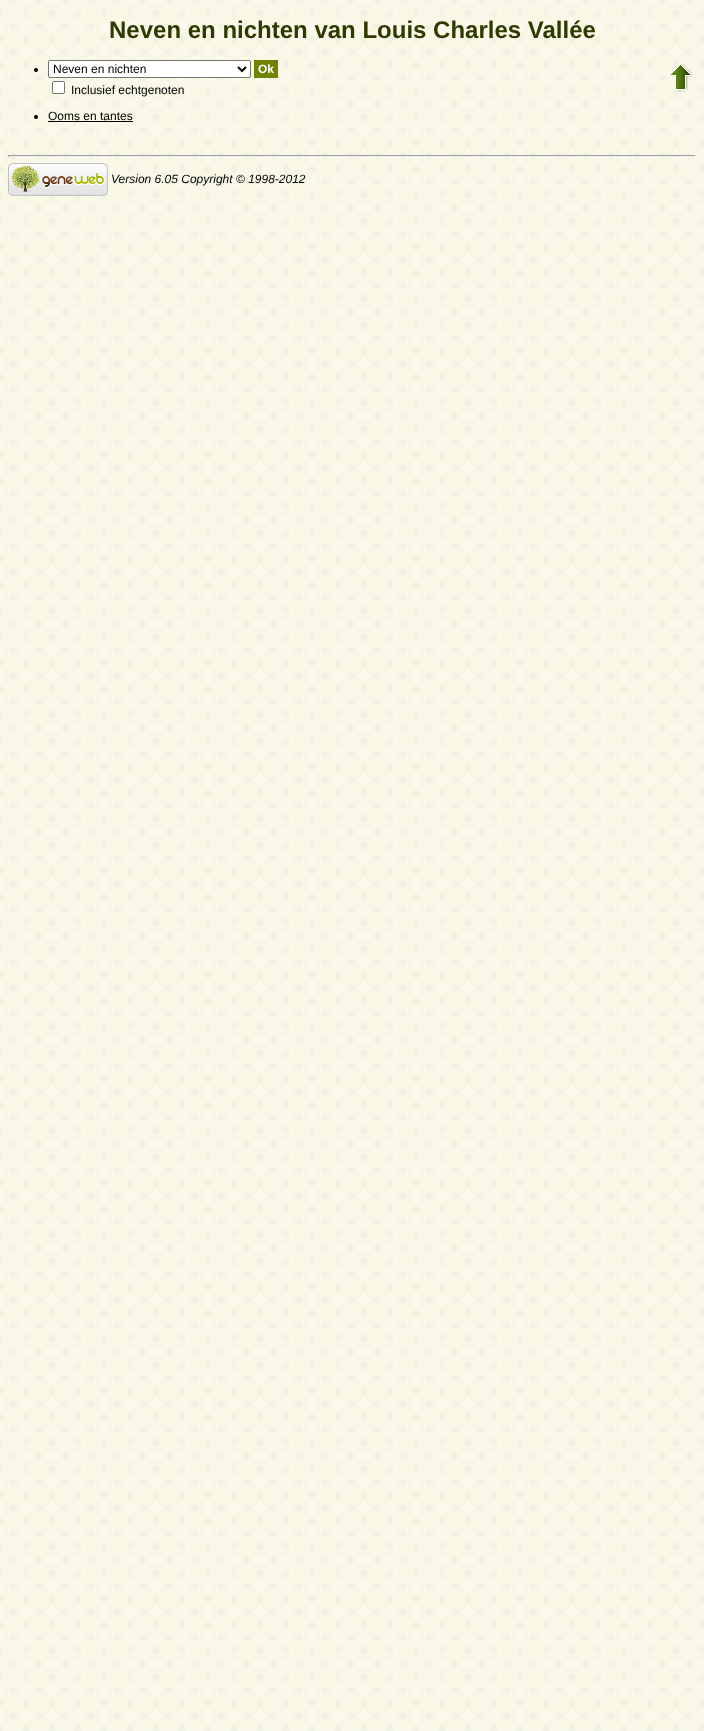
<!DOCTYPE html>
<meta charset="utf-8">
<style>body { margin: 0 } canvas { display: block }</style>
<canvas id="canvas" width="704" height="1731"></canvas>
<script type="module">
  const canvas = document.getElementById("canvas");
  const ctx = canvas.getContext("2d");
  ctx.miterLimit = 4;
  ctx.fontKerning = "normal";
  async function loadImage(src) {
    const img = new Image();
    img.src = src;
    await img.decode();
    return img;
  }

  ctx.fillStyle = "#ffffff";
  ctx.fillRect(0, 0, 704, 1731);
  ctx.drawImage(await loadImage("img1.png"), 0, 0, 704, 1731);
  ctx.font = "bold 24px Liberation Sans";
  ctx.fillStyle = "#303900";
  ctx.fillText("Neven en nichten van Louis Charles Vallée", 109, 38);
  ctx.fillStyle = "#000000";
  ctx.beginPath();
  ctx.arc(36, 70, 2, 0, Math.PI * 2);
  ctx.fill();
  ctx.fillStyle = "#ffffff";
  ctx.beginPath();
  ctx.roundRect(48.5, 60.5, 202, 17, 1.5);
  ctx.fill();
  ctx.strokeStyle = "#767676";
  ctx.stroke();
  ctx.beginPath();
  ctx.moveTo(238, 67);
  ctx.lineTo(242, 71);
  ctx.lineTo(246, 67);
  ctx.strokeStyle = "#000000";
  ctx.lineWidth = 2;
  ctx.stroke();
  ctx.font = "12px Liberation Sans";
  ctx.fillStyle = "#000000";
  ctx.fillText("Neven en nichten", 53, 73);
  ctx.fillStyle = "#6f8301";
  ctx.fillRect(254, 60, 24, 18);
  ctx.font = "bold 12px Liberation Sans";
  ctx.fillStyle = "#ffffff";
  ctx.fillText("Ok", 258, 73);
  ctx.beginPath();
  ctx.roundRect(52.5, 81.5, 12, 12, 1.5);
  ctx.fill();
  ctx.strokeStyle = "#767676";
  ctx.lineWidth = 1;
  ctx.stroke();
  ctx.font = "12px Liberation Sans";
  ctx.fillStyle = "#000000";
  ctx.fillText("Inclusief echtgenoten", 71, 94);
  ctx.beginPath();
  ctx.arc(36, 117, 2, 0, Math.PI * 2);
  ctx.fill();
  ctx.fillText("Ooms en tantes", 48, 120);
  ctx.fillRect(48, 121, 85, 1);
  ctx.drawImage(await loadImage("img2.png"), 671, 64, 22, 28);
  ctx.fillStyle = "#9f9f9f";
  ctx.fillRect(8, 155, 688, 1);
  ctx.fillStyle = "#eeeeee";
  ctx.fillRect(695, 155, 1, 2);
  ctx.fillRect(8, 156, 688, 1);
  ctx.fillStyle = "#9f9f9f";
  ctx.fillRect(8, 155, 1, 2);
  ctx.drawImage(await loadImage("img3.png"), 8, 163, 100, 33);
  ctx.font = "italic 12px Liberation Sans";
  ctx.fillStyle = "#000000";
  ctx.fillText("Version 6.05 Copyright © 1998-2012", 111, 183);
</script>
